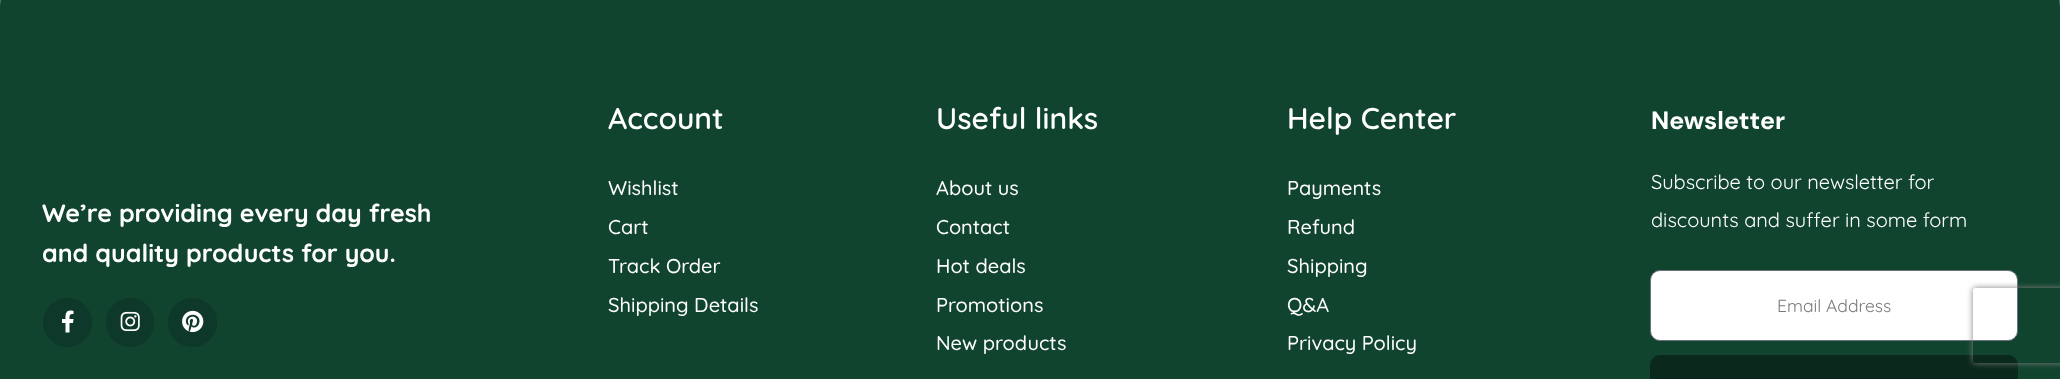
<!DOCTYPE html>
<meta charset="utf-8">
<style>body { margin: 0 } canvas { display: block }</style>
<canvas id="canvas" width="2060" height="379"></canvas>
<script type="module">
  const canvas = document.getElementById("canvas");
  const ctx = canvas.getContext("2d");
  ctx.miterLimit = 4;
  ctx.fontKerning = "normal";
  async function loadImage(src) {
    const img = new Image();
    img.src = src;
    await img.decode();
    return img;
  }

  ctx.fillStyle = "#ffffff";
  ctx.fillRect(0, 0, 2060, 379);
  ctx.fillStyle = "#10442e";
  ctx.beginPath();
  ctx.moveTo(125, -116);
  ctx.lineTo(1935, -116);
  ctx.bezierCurveTo(2004, -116, 2060, -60, 2060, 9);
  ctx.lineTo(2060, 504);
  ctx.lineTo(0, 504);
  ctx.lineTo(0, 9);
  ctx.bezierCurveTo(0, -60, 56, -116, 125, -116);
  ctx.closePath();
  ctx.fill();
  ctx.font = "bold 25px Quicksand";
  ctx.fillStyle = "#ffffff";
  ctx.fillText("We’re providing every day fresh", 42, 222);
  ctx.fillText("and quality products for you.", 42, 262);
  ctx.fillStyle = "#0e382a";
  ctx.beginPath();
  ctx.arc(67.5, 322.5, 24.5, 0, Math.PI * 2);
  ctx.fill();
  ctx.fillStyle = "#ffffff";
  ctx.beginPath();
  ctx.moveTo(73, 323);
  ctx.lineTo(69.5, 323);
  ctx.lineTo(69.5, 332.5);
  ctx.lineTo(65.5, 332.5);
  ctx.lineTo(65.5, 323);
  ctx.lineTo(62, 323);
  ctx.lineTo(62, 319);
  ctx.lineTo(65.5, 319);
  ctx.bezierCurveTo(65.5, 312.5, 66.5, 309.5, 73.5, 311);
  ctx.lineTo(73.5, 314);
  ctx.bezierCurveTo(69.5, 314, 69.5, 315, 69.5, 319);
  ctx.lineTo(73.5, 319);
  ctx.closePath();
  ctx.fill();
  ctx.drawImage(await loadImage("img1.png"), 106, 298, 48, 49);
  ctx.drawImage(await loadImage("img2.png"), 168, 298, 49, 49);
  ctx.font = "600 30px Quicksand";
  ctx.fillText("Account", 608, 129);
  ctx.font = "500 20px Quicksand";
  ctx.fillText("Wishlist", 608, 195);
  ctx.fillText("Cart", 608, 234);
  ctx.fillText("Track Order", 608, 273);
  ctx.fillText("Shipping Details", 608, 312);
  ctx.font = "600 30px Quicksand";
  ctx.fillText("Useful links", 936, 129);
  ctx.font = "500 20px Quicksand";
  ctx.fillText("About us", 936, 195);
  ctx.fillText("Contact", 936, 234);
  ctx.fillText("Hot deals", 936, 273);
  ctx.fillText("Promotions", 936, 312);
  ctx.fillText("New products", 936, 350);
  ctx.font = "600 30px Quicksand";
  ctx.fillText("Help Center", 1287, 129);
  ctx.font = "500 20px Quicksand";
  ctx.fillText("Payments", 1287, 195);
  ctx.fillText("Refund", 1287, 234);
  ctx.fillText("Shipping", 1287, 273);
  ctx.fillText("Q&A", 1287, 312);
  ctx.fillText("Privacy Policy", 1287, 350);
  ctx.font = "bold 25px DM Sans";
  ctx.fillText("Newsletter", 1651, 129);
  ctx.font = "20px Quicksand";
  ctx.fillText("Subscribe to our newsletter for", 1651, 189);
  ctx.fillText("discounts and suffer in some form", 1651, 227);
  ctx.beginPath();
  ctx.roundRect(1650.5, 270.5, 367, 70, 9.5);
  ctx.fill();
  ctx.strokeStyle = "#69727d";
  ctx.stroke();
  ctx.font = "17.5px Quicksand";
  ctx.fillStyle = "#797a7c";
  ctx.fillText("Email Address", 1777, 312);
  ctx.fillStyle = "#0a281b";
  ctx.beginPath();
  ctx.roundRect(1650, 355, 368, 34, 10);
  ctx.fill();
  ctx.save();
  ctx.beginPath();
  ctx.moveTo(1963, 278);
  ctx.lineTo(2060, 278);
  ctx.lineTo(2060, 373);
  ctx.lineTo(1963, 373);
  ctx.closePath();
  ctx.moveTo(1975.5, 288);
  ctx.lineTo(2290.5, 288);
  ctx.bezierCurveTo(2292, 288, 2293, 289, 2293, 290.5);
  ctx.lineTo(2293, 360.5);
  ctx.bezierCurveTo(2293, 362, 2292, 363, 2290.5, 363);
  ctx.lineTo(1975.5, 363);
  ctx.bezierCurveTo(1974, 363, 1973, 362, 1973, 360.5);
  ctx.lineTo(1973, 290.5);
  ctx.bezierCurveTo(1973, 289, 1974, 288, 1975.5, 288);
  ctx.closePath();
  ctx.clip("evenodd");
  ctx.fillStyle = "#808080";
  ctx.filter = "blur(3px)";
  ctx.beginPath();
  ctx.roundRect(1973, 288, 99, 75, 2.5);
  ctx.fill();
  ctx.filter = "none";
  ctx.restore();
</script>
